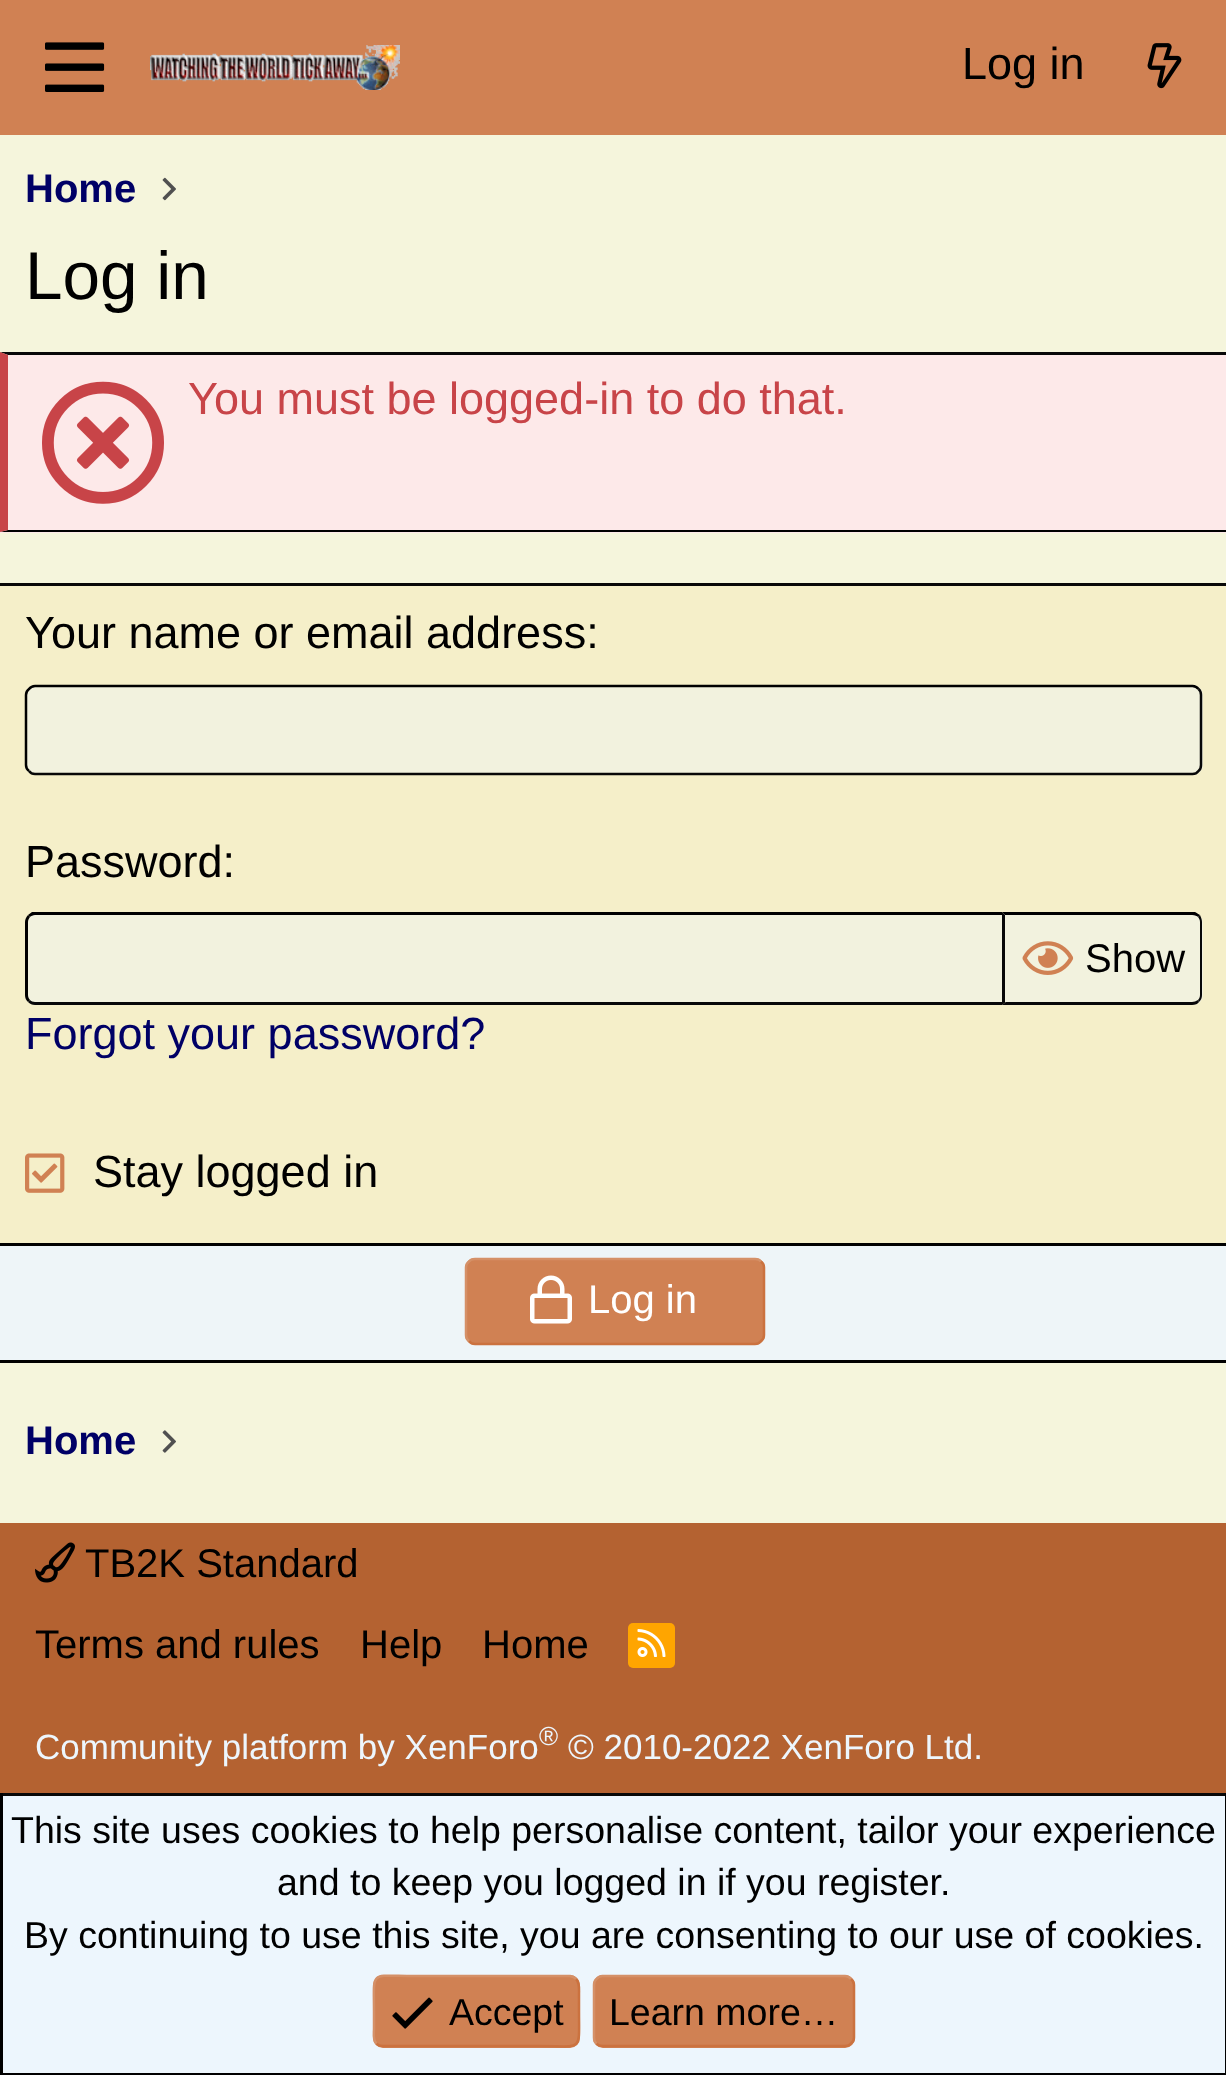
<!DOCTYPE html>
<meta charset="utf-8">
<style>body { margin: 0 } canvas { display: block }</style>
<canvas id="canvas" width="1226" height="2075"></canvas>
<script type="module">
  const canvas = document.getElementById("canvas");
  const ctx = canvas.getContext("2d");
  ctx.miterLimit = 4;
  ctx.fontKerning = "normal";
  async function loadImage(src) {
    const img = new Image();
    img.src = src;
    await img.decode();
    return img;
  }

  ctx.fillStyle = "#f5f5dc";
  ctx.fillRect(0, 0, 1226, 2075);
  ctx.fillStyle = "#d08153";
  ctx.fillRect(0, 0, 1226, 135);
  ctx.drawImage(await loadImage("img1.png"), 45, 42, 60, 50);
  ctx.drawImage(await loadImage("img2.png"), 150, 45, 250, 45);
  ctx.font = "45px Liberation Sans";
  ctx.fillStyle = "#000000";
  ctx.fillText("Log in", 962, 79);
  ctx.drawImage(await loadImage("img3.png"), 1147, 43, 35, 46);
  ctx.font = "bold 40px Liberation Sans";
  ctx.fillStyle = "#000066";
  ctx.fillText("Home", 25, 202);
  ctx.drawImage(await loadImage("img4.png"), 162, 177, 14, 24);
  ctx.font = "67.5px Liberation Sans";
  ctx.fillStyle = "#000000";
  ctx.fillText("Log in", 25, 299);
  ctx.fillStyle = "#fde9e9";
  ctx.fillRect(0, 353, 1226, 180);
  ctx.fillStyle = "#080808";
  ctx.beginPath();
  ctx.moveTo(0, 352);
  ctx.lineTo(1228, 352);
  ctx.lineTo(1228, 355);
  ctx.lineTo(8, 355);
  ctx.closePath();
  ctx.fill();
  ctx.fillStyle = "#000000";
  ctx.beginPath();
  ctx.moveTo(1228, 532);
  ctx.lineTo(0, 532);
  ctx.lineTo(8, 530);
  ctx.lineTo(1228, 530);
  ctx.closePath();
  ctx.fill();
  ctx.fillStyle = "#c84448";
  ctx.beginPath();
  ctx.moveTo(0, 532);
  ctx.lineTo(0, 352);
  ctx.lineTo(8, 355);
  ctx.lineTo(8, 530);
  ctx.closePath();
  ctx.fill();
  ctx.drawImage(await loadImage("img5.png"), 42, 381, 122, 123);
  ctx.font = "45px Liberation Sans";
  ctx.fillText("You must be logged-in to do that.", 188, 414);
  ctx.fillStyle = "#f5efc9";
  ctx.fillRect(0, 586, 1226, 657);
  ctx.fillStyle = "#080808";
  ctx.fillRect(0, 583, 1226, 3);
  ctx.fillStyle = "#000000";
  ctx.fillRect(0, 1360, 1226, 3);
  ctx.fillText("Your name or email address:", 25, 648);
  ctx.fillStyle = "#f2f2de";
  ctx.beginPath();
  ctx.roundRect(25, 685, 1178, 90, 10);
  ctx.fill();
  ctx.beginPath();
  ctx.moveTo(1198.5, 689);
  ctx.bezierCurveTo(1200.5, 690.5, 1201, 692.5, 1201, 695);
  ctx.lineTo(1201, 765);
  ctx.bezierCurveTo(1201, 767.5, 1200.5, 769.5, 1198.5, 771);
  ctx.bezierCurveTo(1197, 773, 1195, 774, 1192.5, 774);
  ctx.lineTo(35, 774);
  ctx.bezierCurveTo(32.5, 774, 30.5, 773, 29, 771);
  ctx.strokeStyle = "#080808";
  ctx.lineWidth = 2.5;
  ctx.stroke();
  ctx.beginPath();
  ctx.moveTo(29, 771);
  ctx.bezierCurveTo(27, 769.5, 26, 767.5, 26, 765);
  ctx.lineTo(26, 695);
  ctx.bezierCurveTo(26, 692.5, 27, 690.5, 29, 689);
  ctx.bezierCurveTo(30.5, 687, 32.5, 686, 35, 686);
  ctx.lineTo(1192.5, 686);
  ctx.bezierCurveTo(1195, 686, 1197, 687, 1198.5, 689);
  ctx.strokeStyle = "#000000";
  ctx.stroke();
  ctx.fillStyle = "#000000";
  ctx.fillText("Password:", 25, 877);
  ctx.fillStyle = "#f2f2de";
  ctx.beginPath();
  ctx.roundRect(25, 913, 978, 92, [10, 0, 0, 10]);
  ctx.fill();
  ctx.fillStyle = "#000000";
  ctx.beginPath();
  ctx.moveTo(35, 915);
  ctx.bezierCurveTo(33, 915, 31, 916, 30, 917);
  ctx.lineTo(28, 915);
  ctx.lineTo(32, 912);
  ctx.lineTo(1002, 912);
  ctx.lineTo(1002, 915);
  ctx.closePath();
  ctx.fill();
  ctx.fillStyle = "#080808";
  ctx.beginPath();
  ctx.moveTo(35, 1005);
  ctx.lineTo(1002, 1005);
  ctx.lineTo(1002, 1002);
  ctx.lineTo(35, 1002);
  ctx.bezierCurveTo(33, 1002, 31, 1001, 30, 1000);
  ctx.lineTo(28, 1002);
  ctx.bezierCurveTo(30, 1004, 32, 1005, 35, 1005);
  ctx.closePath();
  ctx.fill();
  ctx.fillStyle = "#000000";
  ctx.beginPath();
  ctx.moveTo(25, 922);
  ctx.lineTo(25, 995);
  ctx.bezierCurveTo(25, 998, 26, 1000, 28, 1002);
  ctx.lineTo(30, 1000);
  ctx.bezierCurveTo(29, 999, 28, 997, 28, 995);
  ctx.lineTo(28, 922);
  ctx.bezierCurveTo(28, 920, 29, 918, 30, 917);
  ctx.lineTo(28, 915);
  ctx.bezierCurveTo(26, 917, 25, 920, 25, 922);
  ctx.closePath();
  ctx.fill();
  ctx.fillStyle = "#f2f2de";
  ctx.beginPath();
  ctx.roundRect(1003, 913, 200, 92, [0, 10, 10, 0]);
  ctx.fill();
  ctx.fillStyle = "#000000";
  ctx.beginPath();
  ctx.moveTo(1005, 915);
  ctx.lineTo(1002, 912);
  ctx.lineTo(1195, 912);
  ctx.bezierCurveTo(1197, 913, 1198, 914, 1200, 915);
  ctx.lineTo(1198, 917);
  ctx.bezierCurveTo(1197, 916, 1195, 915, 1192, 915);
  ctx.closePath();
  ctx.fill();
  ctx.fillStyle = "#080808";
  ctx.beginPath();
  ctx.moveTo(1200, 915);
  ctx.bezierCurveTo(1201, 917, 1202, 920, 1202, 922);
  ctx.lineTo(1202, 995);
  ctx.bezierCurveTo(1202, 998, 1201, 1000, 1199, 1002);
  ctx.lineTo(1198, 1000);
  ctx.bezierCurveTo(1199, 999, 1200, 997, 1200, 995);
  ctx.lineTo(1200, 922);
  ctx.bezierCurveTo(1200, 920, 1199, 918, 1198, 917);
  ctx.closePath();
  ctx.fill();
  ctx.beginPath();
  ctx.moveTo(1002, 1005);
  ctx.lineTo(1192, 1005);
  ctx.bezierCurveTo(1195, 1005, 1198, 1004, 1199, 1002);
  ctx.lineTo(1198, 1000);
  ctx.bezierCurveTo(1196, 1001, 1194, 1002, 1192, 1002);
  ctx.lineTo(1006, 1002);
  ctx.closePath();
  ctx.fill();
  ctx.beginPath();
  ctx.moveTo(1005, 915);
  ctx.lineTo(1002, 912);
  ctx.lineTo(1002, 1005);
  ctx.lineTo(1006, 1002);
  ctx.lineTo(1005, 1002);
  ctx.closePath();
  ctx.fill();
  ctx.drawImage(await loadImage("img6.png"), 1022, 941, 52, 34);
  ctx.font = "40px Liberation Sans";
  ctx.fillStyle = "#000000";
  ctx.fillText("Show", 1085, 972);
  ctx.font = "45px Liberation Sans";
  ctx.fillStyle = "#000066";
  ctx.fillText("Forgot your password?", 25, 1049);
  ctx.drawImage(await loadImage("img7.png"), 25, 1153, 40, 40);
  ctx.fillStyle = "#000000";
  ctx.fillText("Stay logged in", 93, 1187);
  ctx.fillStyle = "#eef5f8";
  ctx.fillRect(0, 1246, 1226, 114);
  ctx.fillStyle = "#000000";
  ctx.fillRect(0, 1243, 1226, 3);
  ctx.fillStyle = "#d08153";
  ctx.beginPath();
  ctx.roundRect(465, 1258, 300, 87, 10);
  ctx.fill();
  ctx.beginPath();
  ctx.moveTo(761, 1261.5);
  ctx.bezierCurveTo(763, 1263, 764, 1265, 764, 1267.5);
  ctx.lineTo(764, 1335);
  ctx.bezierCurveTo(764, 1337.5, 763, 1339.5, 761, 1341);
  ctx.bezierCurveTo(759.5, 1343, 757.5, 1344, 755, 1344);
  ctx.lineTo(475, 1344);
  ctx.bezierCurveTo(472.5, 1344, 470.5, 1343, 469, 1341);
  ctx.strokeStyle = "#cb723f";
  ctx.stroke();
  ctx.beginPath();
  ctx.moveTo(469, 1341);
  ctx.bezierCurveTo(467, 1339.5, 466, 1337.5, 466, 1335);
  ctx.lineTo(466, 1267.5);
  ctx.bezierCurveTo(466, 1265, 467, 1263, 469, 1261.5);
  ctx.bezierCurveTo(470.5, 1259.5, 472.5, 1259, 475, 1259);
  ctx.lineTo(755, 1259);
  ctx.bezierCurveTo(757.5, 1259, 759.5, 1259.5, 761, 1261.5);
  ctx.strokeStyle = "#d59067";
  ctx.stroke();
  ctx.drawImage(await loadImage("img8.png"), 530, 1275, 42, 49);
  ctx.font = "40px Liberation Sans";
  ctx.fillStyle = "#ffffff";
  ctx.fillText("Log in", 588, 1313);
  ctx.font = "bold 40px Liberation Sans";
  ctx.fillStyle = "#000066";
  ctx.fillText("Home", 25, 1454);
  ctx.drawImage(await loadImage("img9.png"), 162, 1430, 14, 23);
  ctx.fillStyle = "#b46231";
  ctx.fillRect(0, 1523, 1226, 270);
  ctx.drawImage(await loadImage("img10.png"), 35, 1542, 40, 41);
  ctx.font = "40px Liberation Sans";
  ctx.fillStyle = "#000000";
  ctx.fillText("TB2K Standard", 85, 1577);
  ctx.fillText("Terms and rules", 35, 1658);
  ctx.fillText("Help", 360, 1658);
  ctx.fillText("Home", 482, 1658);
  ctx.fillStyle = "#ffa500";
  ctx.beginPath();
  ctx.roundRect(628, 1623, 47, 45, 5);
  ctx.fill();
  ctx.drawImage(await loadImage("img11.png"), 637, 1629, 29, 28);
  ctx.font = "35px Liberation Sans";
  ctx.fillStyle = "#edf6fd";
  ctx.fillText("Community platform by XenForo", 35, 1759);
  ctx.font = "26px Liberation Sans";
  ctx.fillText("®", 539, 1745);
  ctx.font = "35px Liberation Sans";
  ctx.fillText("© 2010-2022 XenForo Ltd.", 568, 1759);
  ctx.fillRect(3, 1796, 1222, 277);
  ctx.fillStyle = "#080808";
  ctx.fillRect(0, 1793, 1226, 3);
  ctx.fillStyle = "#000000";
  ctx.fillRect(1225, 1793, 1, 282);
  ctx.fillRect(0, 2073, 1226, 2);
  ctx.fillRect(0, 1793, 3, 282);
  ctx.font = "37.5px Liberation Sans";
  ctx.fillText("This site uses cookies to help personalise content, tailor your experience", 11, 1843);
  ctx.fillText("and to keep you logged in if you register.", 277, 1895);
  ctx.fillText("By continuing to use this site, you are consenting to our use of cookies.", 24, 1948);
  ctx.fillStyle = "#d08153";
  ctx.beginPath();
  ctx.roundRect(373, 1975, 207, 73, 10);
  ctx.fill();
  ctx.beginPath();
  ctx.moveTo(576, 1979);
  ctx.bezierCurveTo(580, 1982.5, 579, 1989, 579, 1994);
  ctx.lineTo(579, 2011);
  ctx.bezierCurveTo(579, 2053, 583.5, 2046, 539, 2046);
  ctx.lineTo(382.5, 2046);
  ctx.bezierCurveTo(380, 2046, 378, 2045.5, 376.5, 2043.5);
  ctx.strokeStyle = "#cb723f";
  ctx.stroke();
  ctx.beginPath();
  ctx.moveTo(376.5, 2043.5);
  ctx.bezierCurveTo(372.5, 2040, 374, 2033.5, 374, 2029);
  ctx.lineTo(374, 2011);
  ctx.bezierCurveTo(374, 1969.5, 369, 1976, 414, 1976);
  ctx.lineTo(570, 1976);
  ctx.bezierCurveTo(572.5, 1976.5, 574.5, 1977, 576, 1979);
  ctx.strokeStyle = "#d59067";
  ctx.stroke();
  ctx.drawImage(await loadImage("img12.png"), 392, 1997, 41, 32);
  ctx.fillStyle = "#000000";
  ctx.fillText("Accept", 449, 2025);
  ctx.fillStyle = "#d08153";
  ctx.beginPath();
  ctx.roundRect(593, 1975, 262, 73, 10);
  ctx.fill();
  ctx.beginPath();
  ctx.moveTo(851, 1979);
  ctx.bezierCurveTo(853, 1980.5, 854, 1982.5, 854, 1985);
  ctx.lineTo(854, 2037.5);
  ctx.bezierCurveTo(854, 2040, 853, 2042, 851, 2043.5);
  ctx.bezierCurveTo(849.5, 2045.5, 847.5, 2046, 845, 2046);
  ctx.lineTo(602.5, 2046);
  ctx.bezierCurveTo(600, 2046, 598, 2045.5, 596.5, 2043.5);
  ctx.strokeStyle = "#cb723f";
  ctx.stroke();
  ctx.beginPath();
  ctx.moveTo(596.5, 2043.5);
  ctx.bezierCurveTo(594.5, 2042, 594, 2040, 594, 2037.5);
  ctx.lineTo(594, 1985);
  ctx.bezierCurveTo(594, 1982.5, 594.5, 1980.5, 596.5, 1979);
  ctx.bezierCurveTo(598, 1977, 600, 1976, 602.5, 1976);
  ctx.lineTo(845, 1976);
  ctx.bezierCurveTo(847.5, 1976, 849.5, 1977, 851, 1979);
  ctx.strokeStyle = "#d59067";
  ctx.stroke();
  ctx.fillStyle = "#000000";
  ctx.fillText("Learn more…", 609, 2025);
</script>
